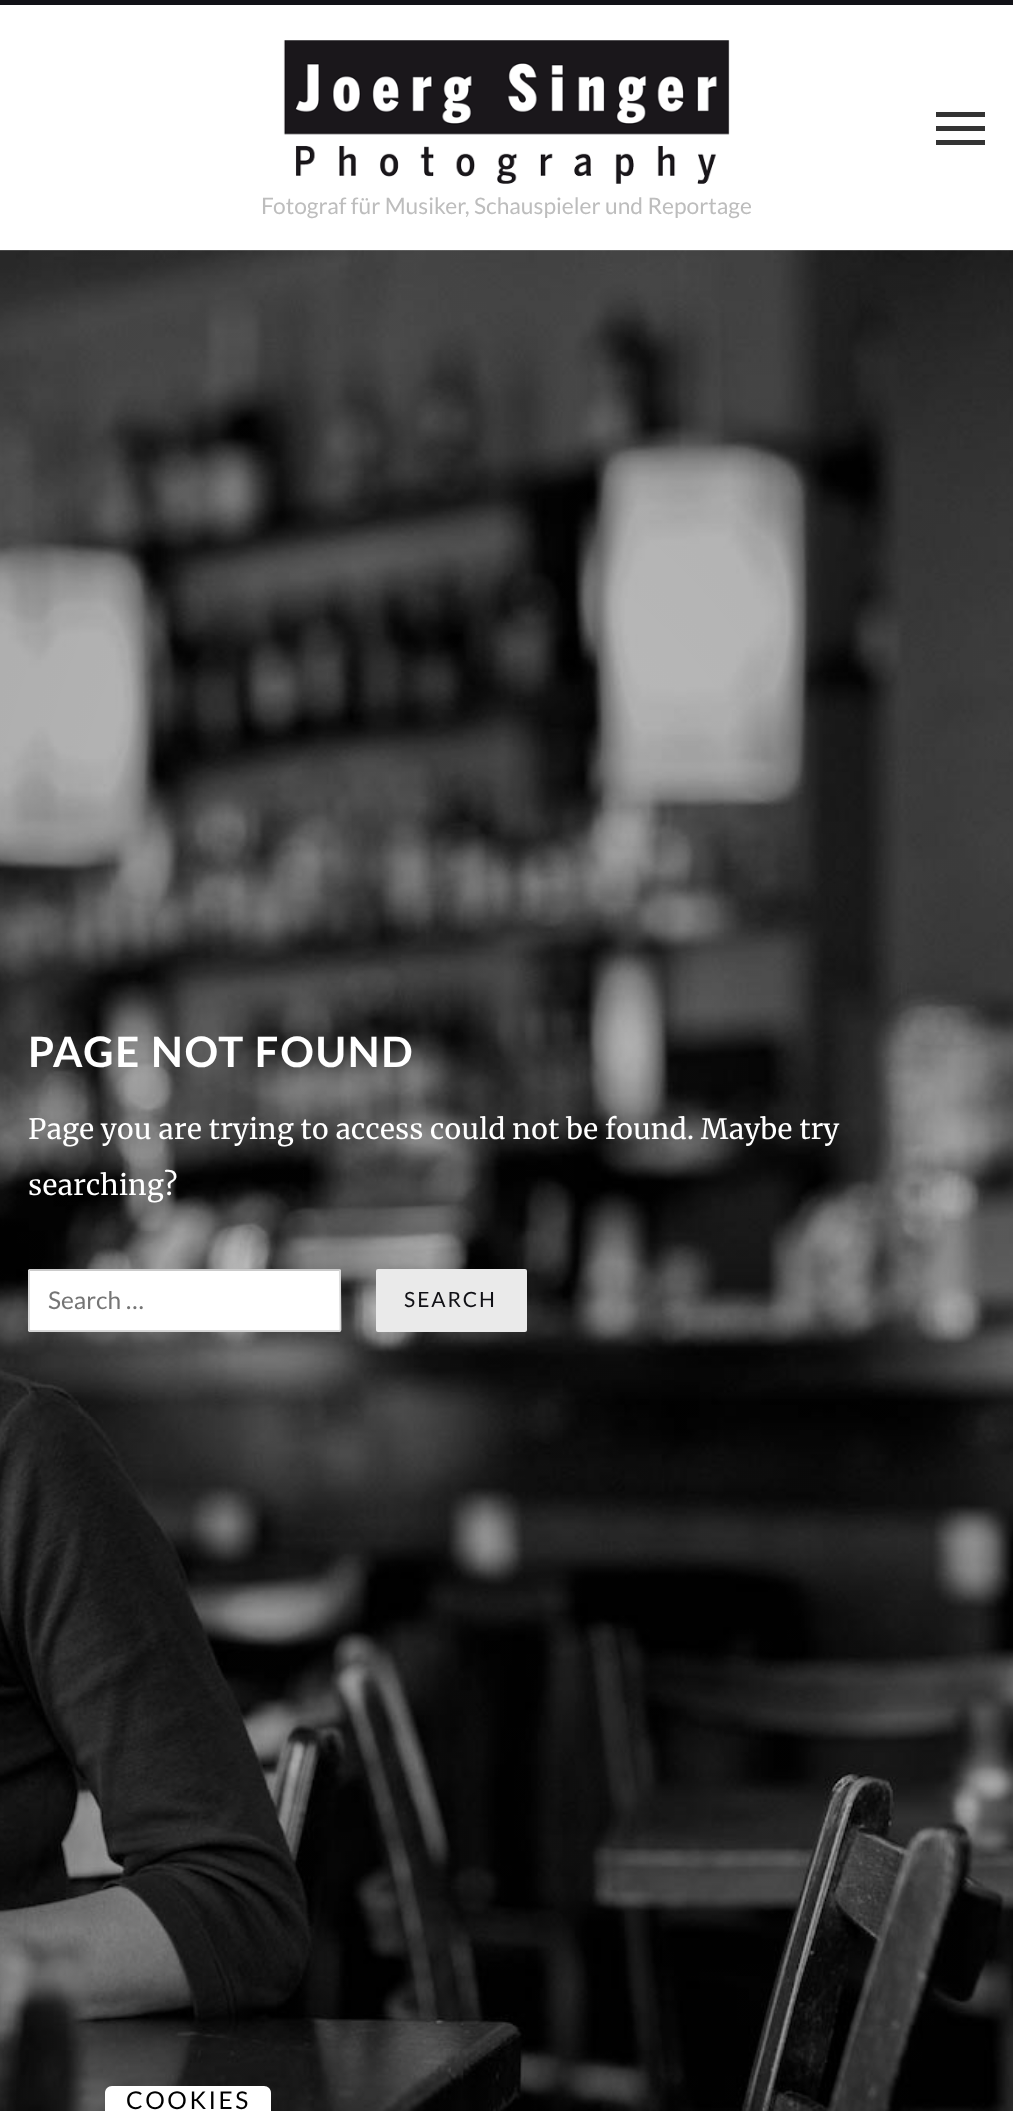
<!DOCTYPE html>
<meta charset="utf-8">
<style>body { margin: 0 } canvas { display: block }</style>
<canvas id="canvas" width="1013" height="2111"></canvas>
<script type="module">
  const canvas = document.getElementById("canvas");
  const ctx = canvas.getContext("2d");
  ctx.miterLimit = 4;
  ctx.fontKerning = "normal";
  async function loadImage(src) {
    const img = new Image();
    img.src = src;
    await img.decode();
    return img;
  }
  let gradient;

  ctx.fillStyle = "#ffffff";
  ctx.fillRect(0, 0, 1013, 2111);
  ctx.fillStyle = "#333333";
  ctx.fillRect(936, 126, 49, 5);
  ctx.fillRect(936, 112, 49, 5);
  ctx.fillRect(936, 140, 49, 5);
  ctx.fillStyle = "#111116";
  ctx.fillRect(0, 0, 1013, 5);
  ctx.drawImage(await loadImage("img1.png"), 283, 40, 447, 144);
  ctx.font = "22.75px Lato";
  ctx.fillStyle = "#bdbdbd";
  ctx.fillText("Fotograf für Musiker, Schauspieler und Reportage", 261, 214);
  ctx.drawImage(await loadImage("img2.png"), 0, 250, 1013, 1861);
  gradient = ctx.createRadialGradient(507, 642.06, 0, 507, 642.06, 716);
  gradient.addColorStop(0, "rgba(0, 0, 0, 0.25)");
  gradient.addColorStop(1, "rgba(0, 0, 0, 0.33)");
  ctx.fillStyle = gradient;
  ctx.beginPath();
  ctx.rect(0, 250, 1013, 1861);
  ctx.save();
  ctx.clip();
  ctx.scale(1, 1317 / 716);
  ctx.fillRect(0, 0, 1013, 1148);
  ctx.restore();
  ctx.letterSpacing = "1.75px";
  ctx.font = "bold 42px Lato";
  ctx.fillStyle = "#ffffff";
  ctx.fillText("PAGE NOT FOUND", 28, 1067);
  ctx.letterSpacing = "0px";
  ctx.font = "28px Merriweather";
  ctx.fillText("Page you are trying to access could not be found. Maybe try", 28, 1139);
  ctx.fillText("searching?", 28, 1195);
  ctx.beginPath();
  ctx.roundRect(28, 1269, 313, 63, 2);
  ctx.fill();
  ctx.fillStyle = "rgba(197, 197, 197, 0.9)";
  ctx.fillRect(29, 1269, 311, 2);
  ctx.beginPath();
  ctx.moveTo(340, 1270);
  ctx.lineTo(340.5, 1330);
  ctx.lineTo(339.5, 1331);
  ctx.lineTo(30, 1331);
  ctx.lineTo(29, 1330);
  ctx.lineTo(29, 1270);
  ctx.strokeStyle = "#d7d7d7";
  ctx.lineWidth = 1.8;
  ctx.stroke();
  ctx.font = "24.5px Lato";
  ctx.fillStyle = "#757575";
  ctx.fillText("Search …", 48, 1309);
  ctx.fillStyle = "#eaeaea";
  ctx.beginPath();
  ctx.roundRect(376, 1269, 151, 63, 2);
  ctx.fill();
  ctx.letterSpacing = "2px";
  ctx.font = "21px Lato";
  ctx.fillStyle = "#111116";
  ctx.fillText("SEARCH", 404, 1307);
  ctx.fillStyle = "#ffffff";
  ctx.beginPath();
  ctx.moveTo(112, 2086);
  ctx.lineTo(264, 2086);
  ctx.bezierCurveTo(268, 2086, 271, 2089, 271, 2093);
  ctx.lineTo(271, 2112);
  ctx.lineTo(105, 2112);
  ctx.lineTo(105, 2093);
  ctx.bezierCurveTo(105, 2089, 108, 2086, 112, 2086);
  ctx.closePath();
  ctx.fill();
  ctx.letterSpacing = "2.5px";
  ctx.font = "24.5px Lato";
  ctx.fillStyle = "#000000";
  ctx.fillText("COOKIES", 126, 2109);
</script>
